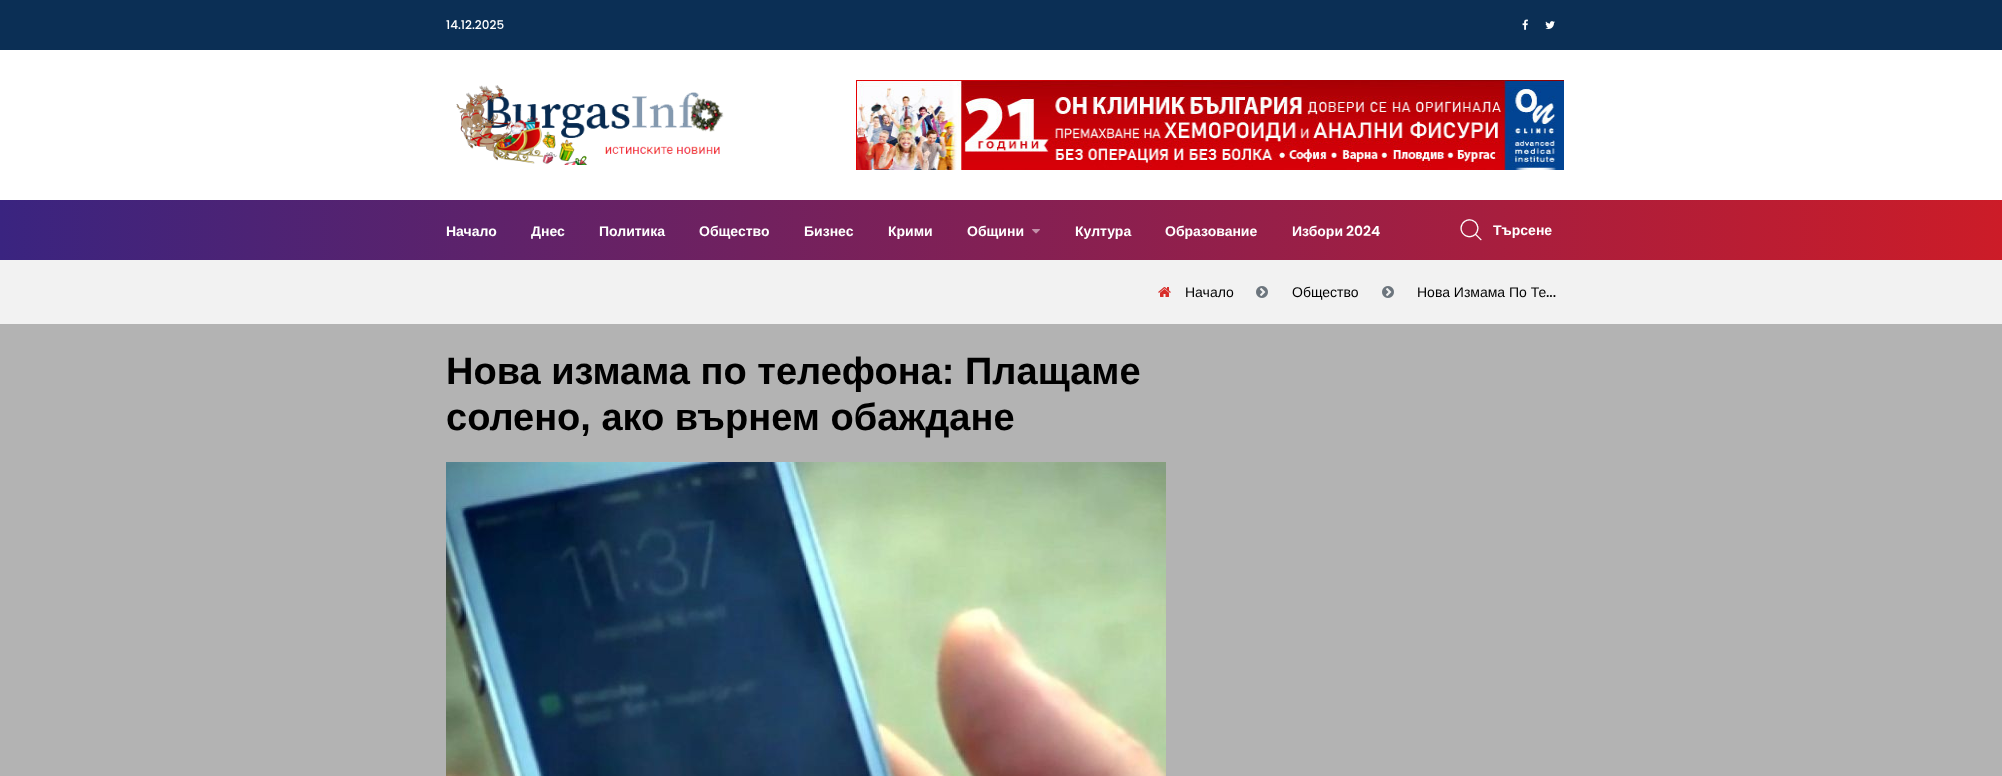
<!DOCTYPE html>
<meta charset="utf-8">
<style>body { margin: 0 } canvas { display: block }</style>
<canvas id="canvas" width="2002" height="776"></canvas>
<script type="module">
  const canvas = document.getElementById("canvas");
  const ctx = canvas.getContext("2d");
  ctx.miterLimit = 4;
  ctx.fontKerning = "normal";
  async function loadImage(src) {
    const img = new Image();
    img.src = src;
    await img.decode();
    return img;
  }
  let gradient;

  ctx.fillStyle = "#ffffff";
  ctx.fillRect(0, 0, 2002, 776);
  ctx.fillStyle = "#0b2f55";
  ctx.fillRect(0, 0, 2002, 50);
  ctx.font = "500 12px Poppins";
  ctx.fillStyle = "#ffffff";
  ctx.fillText("14.12.2025", 446, 29);
  ctx.drawImage(await loadImage("img1.png"), 1522, 19, 6, 11);
  ctx.drawImage(await loadImage("img2.png"), 1545, 21, 10, 8);
  ctx.drawImage(await loadImage("img3.png"), 456, 85, 268, 80);
  ctx.drawImage(await loadImage("img4.png"), 856, 80, 708, 90);
  gradient = ctx.createLinearGradient(0, 230, 2002, 230);
  gradient.addColorStop(0, "#3a2480");
  gradient.addColorStop(1, "#cc1c28");
  ctx.fillStyle = gradient;
  ctx.fillRect(0, 200, 2002, 60);
  ctx.font = "bold 14px Liberation Sans";
  ctx.fillStyle = "#ffffff";
  ctx.fillText("Начало", 446, 236);
  ctx.fillText("Днес", 531, 236);
  ctx.fillText("Политика", 599, 236);
  ctx.fillText("Общество", 699, 236);
  ctx.fillText("Бизнес", 804, 236);
  ctx.fillText("Крими", 888, 236);
  ctx.fillText("Общини", 967, 236);
  ctx.drawImage(await loadImage("img5.png"), 1032, 229, 8, 5);
  ctx.fillText("Култура", 1075, 236);
  ctx.fillText("Образование", 1165, 236);
  ctx.fillText("Избори", 1292, 236);
  ctx.font = "600 14px Poppins";
  ctx.fillText("2024", 1346, 236);
  ctx.drawImage(await loadImage("img6.png"), 1460, 219, 22, 22);
  ctx.font = "bold 14px Liberation Sans";
  ctx.fillText("Търсене", 1493, 235);
  ctx.fillStyle = "#f2f2f2";
  ctx.fillRect(0, 260, 2002, 64);
  ctx.drawImage(await loadImage("img7.png"), 1158, 287, 13, 10);
  ctx.font = "14px Liberation Sans";
  ctx.fillStyle = "#000000";
  ctx.fillText("Начало", 1185, 297);
  ctx.drawImage(await loadImage("img8.png"), 1256, 286, 12, 12);
  ctx.fillText("Общество", 1292, 297);
  ctx.drawImage(await loadImage("img8.png"), 1382, 286, 12, 12);
  ctx.fillText("Нова Измама По Те", 1417, 297);
  ctx.font = "500 14px Poppins";
  ctx.fillText("...", 1546, 297);
  ctx.fillStyle = "#b3b3b3";
  ctx.fillRect(0, 324, 2002, 452);
  ctx.font = "bold 38px Liberation Sans";
  ctx.fillStyle = "#000000";
  ctx.fillText("Нова измама по телефона: Плащаме", 446, 384);
  ctx.fillText("солено, ако върнем обаждане", 446, 430);
  ctx.drawImage(await loadImage("img9.png"), 446, 462, 720, 314);
</script>
